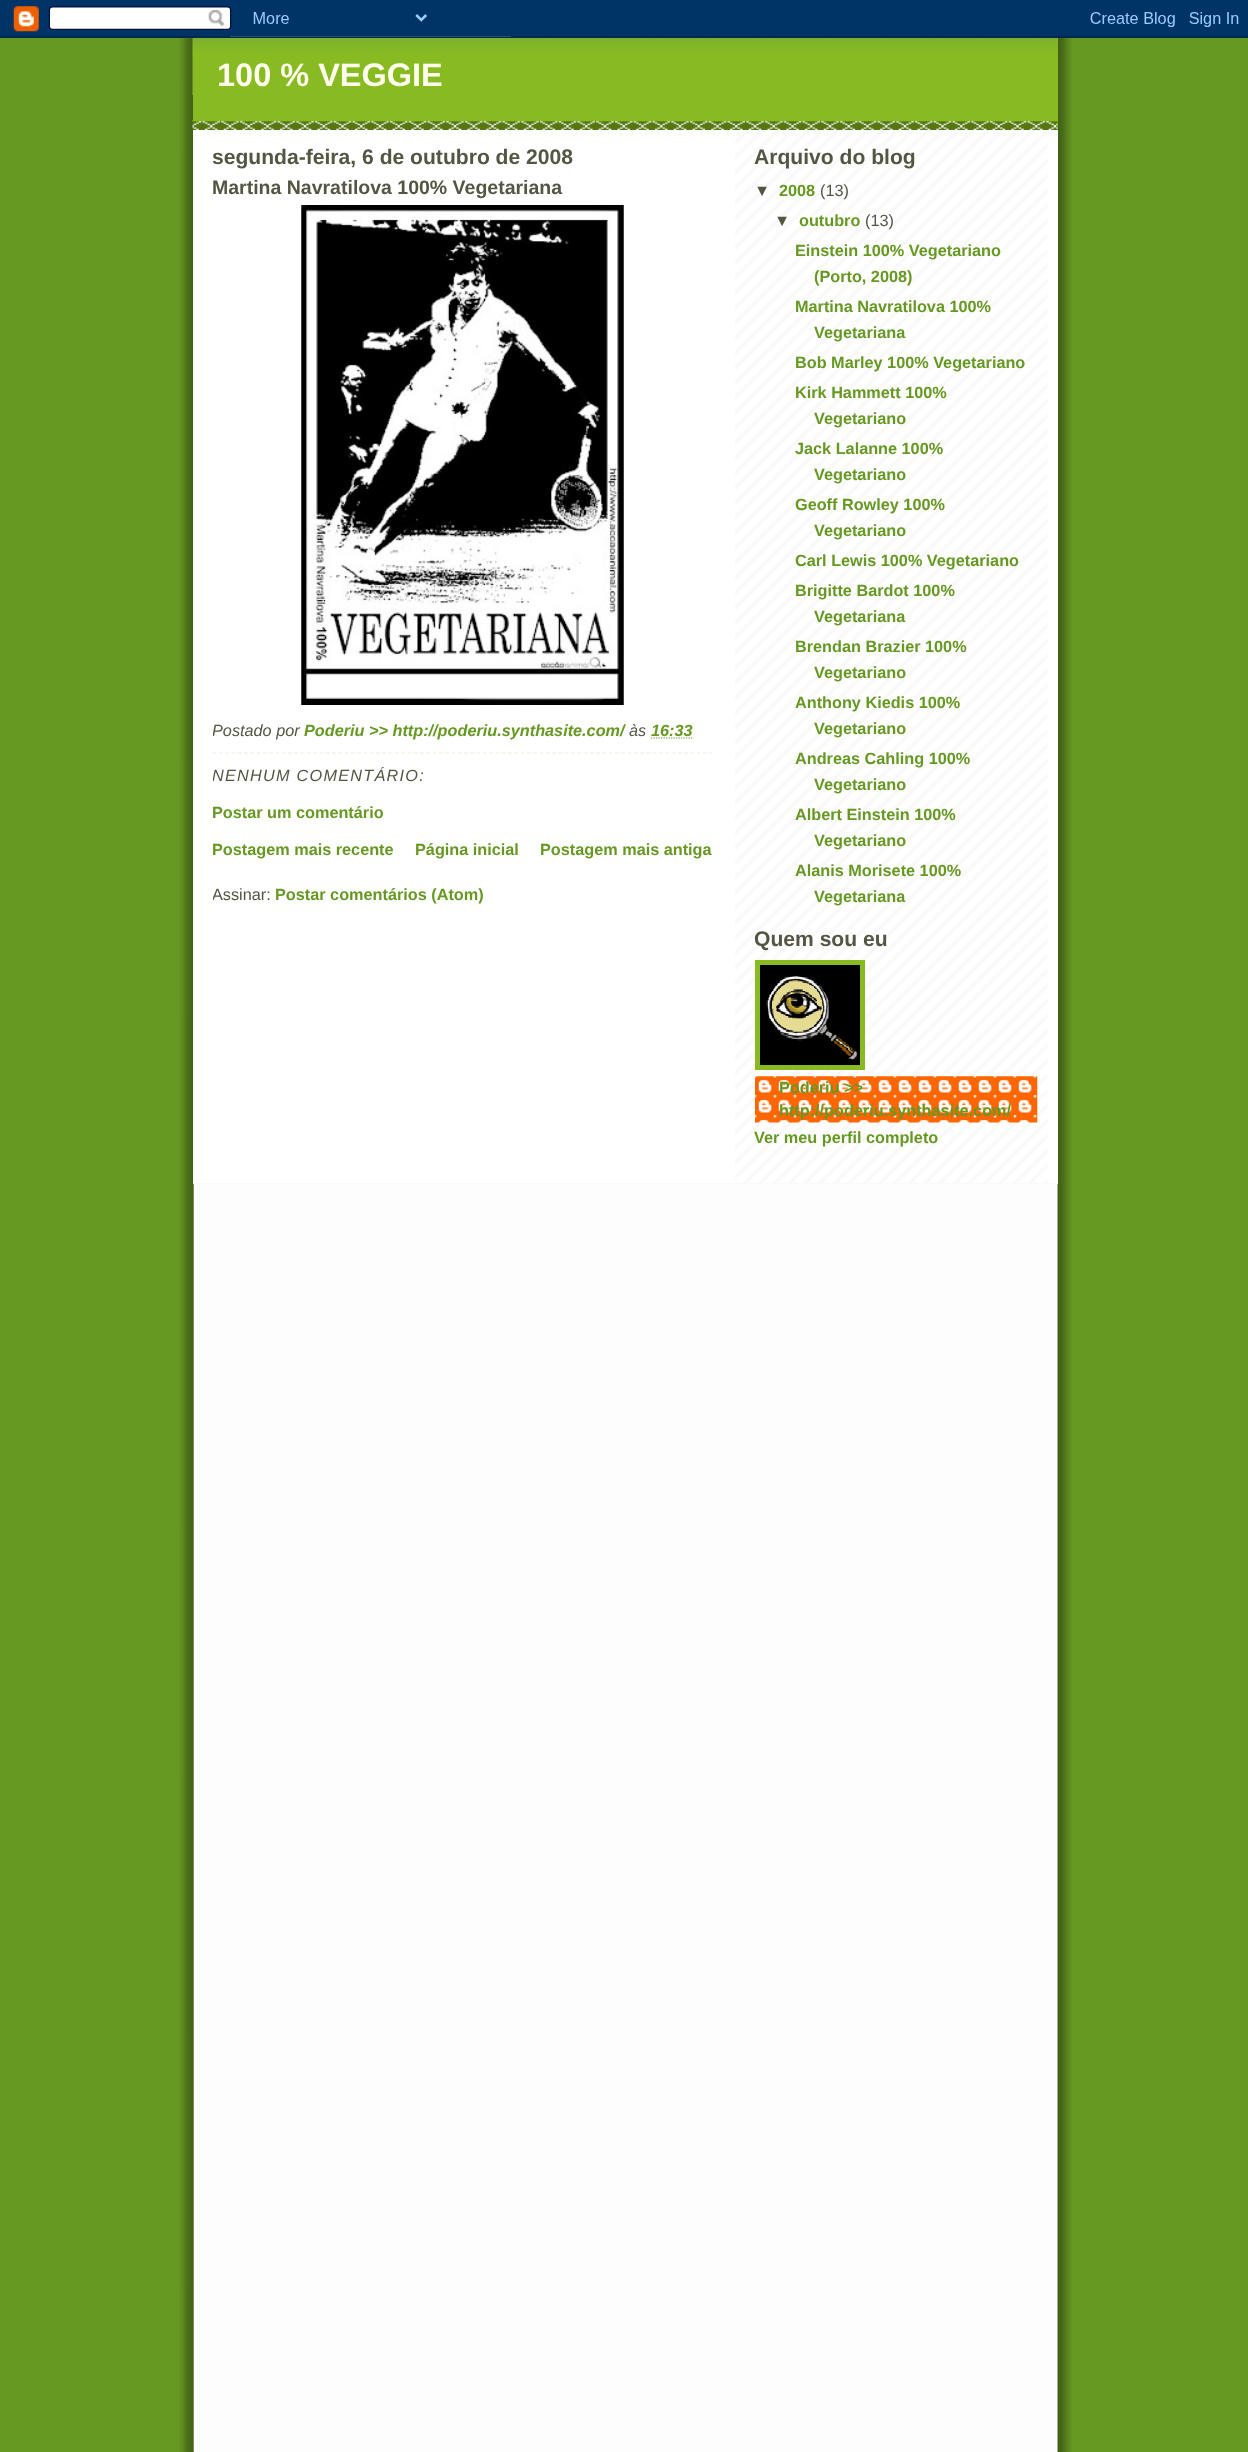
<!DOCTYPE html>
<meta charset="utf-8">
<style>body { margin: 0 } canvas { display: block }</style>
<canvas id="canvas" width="1248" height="2452"></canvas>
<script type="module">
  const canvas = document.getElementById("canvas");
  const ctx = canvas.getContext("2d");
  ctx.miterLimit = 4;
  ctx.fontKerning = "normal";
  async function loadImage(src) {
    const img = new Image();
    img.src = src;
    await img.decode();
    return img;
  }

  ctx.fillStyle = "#669922";
  ctx.fillRect(0, 0, 1248, 2452);
  ctx.drawImage(await loadImage("img1.png"), 179, 36, 893, 2416);
  ctx.drawImage(await loadImage("img2.png"), 0, 0, 1248, 38);
  ctx.fillStyle = "#ffffff";
  ctx.fillRect(193, 130, 865, 1053);
  ctx.drawImage(await loadImage("img3.png"), 735, 130, 323, 1053);
  ctx.fillStyle = "#88bb22";
  ctx.fillRect(193, 38, 865, 92);
  ctx.drawImage(await loadImage("img4.png"), 192, 120, 866, 10);
  ctx.drawImage(await loadImage("img5.png"), 192, 38, 866, 57);
  ctx.font = "bold 32.5px Liberation Sans";
  ctx.fillStyle = "#ffffee";
  ctx.fillText("100 % VEGGIE", 217, 86);
  ctx.font = "bold 21.1px Liberation Sans";
  ctx.fillStyle = "#555544";
  ctx.fillText("segunda-feira, 6 de outubro de 2008", 212, 164);
  ctx.font = "bold 19.5px Liberation Sans";
  ctx.fillText("Martina Navratilova 100% Vegetariana", 212, 194);
  ctx.drawImage(await loadImage("img6.png"), 301, 205, 323, 500);
  ctx.save();
  ctx.beginPath();
  ctx.rect(213, 130, 500, 786);
  ctx.clip();
  ctx.font = "italic 16.25px Liberation Sans";
  ctx.fillText("Postado por", 212, 736);
  ctx.restore();
  ctx.font = "italic bold 16.25px Liberation Sans";
  ctx.fillStyle = "#669922";
  ctx.fillText("Poderiu >> http://poderiu.synthasite.com/", 304, 736);
  ctx.font = "italic 16.25px Liberation Sans";
  ctx.fillStyle = "#555544";
  ctx.fillText("às", 629, 736);
  ctx.font = "italic bold 16.25px Liberation Sans";
  ctx.fillStyle = "#669922";
  ctx.fillText("16:33", 651, 736);
  ctx.beginPath();
  ctx.moveTo(651, 738);
  ctx.lineTo(692.5, 738);
  ctx.strokeStyle = "#669922";
  ctx.lineWidth = 1.2;
  ctx.setLineDash([1.25, 1.25]);
  ctx.stroke();
  ctx.beginPath();
  ctx.moveTo(212.5, 753);
  ctx.lineTo(712.5, 753);
  ctx.strokeStyle = "#eeeedd";
  ctx.setLineDash([3.75, 2.54]);
  ctx.stroke();
  ctx.save();
  ctx.beginPath();
  ctx.rect(213, 130, 500, 786);
  ctx.clip();
  ctx.letterSpacing = "1.25px";
  ctx.font = "italic 16.25px Liberation Sans";
  ctx.fillStyle = "#555544";
  ctx.fillText("NENHUM COMENTÁRIO:", 212, 781);
  ctx.restore();
  ctx.font = "bold 16.25px Liberation Sans";
  ctx.fillText("Postar um comentário", 212, 818);
  ctx.fillText("Postagem mais recente", 212, 855);
  ctx.fillText("Página inicial", 415, 855);
  ctx.fillText("Postagem mais antiga", 540, 855);
  ctx.save();
  ctx.beginPath();
  ctx.rect(213, 130, 500, 786);
  ctx.clip();
  ctx.font = "16.25px Liberation Sans";
  ctx.fillStyle = "#555544";
  ctx.fillText("Assinar:", 212, 900);
  ctx.restore();
  ctx.fillText("Postar comentários (Atom)", 275, 900);
  ctx.font = "bold 21.1px Liberation Sans";
  ctx.fillStyle = "#555544";
  ctx.fillText("Arquivo do blog", 754, 164);
  ctx.font = "bold 16.25px Liberation Sans";
  ctx.fillText("▼", 754, 196);
  ctx.fillStyle = "#669922";
  ctx.fillText("2008", 779, 196);
  ctx.font = "16.25px Liberation Sans";
  ctx.fillStyle = "#555544";
  ctx.fillText("(13)", 820, 196);
  ctx.font = "bold 16.25px Liberation Sans";
  ctx.fillText("▼", 774, 226);
  ctx.fillStyle = "#669922";
  ctx.fillText("outubro", 799, 226);
  ctx.font = "16.25px Liberation Sans";
  ctx.fillStyle = "#555544";
  ctx.fillText("(13)", 865, 226);
  ctx.font = "bold 16.25px Liberation Sans";
  ctx.fillStyle = "#669922";
  ctx.fillText("Einstein 100% Vegetariano", 795, 256);
  ctx.fillText("(Porto, 2008)", 814, 282);
  ctx.fillText("Martina Navratilova 100%", 795, 312);
  ctx.fillText("Vegetariana", 814, 338);
  ctx.fillText("Bob Marley 100% Vegetariano", 795, 368);
  ctx.fillText("Kirk Hammett 100%", 795, 398);
  ctx.fillText("Vegetariano", 814, 424);
  ctx.fillText("Jack Lalanne 100%", 795, 454);
  ctx.fillText("Vegetariano", 814, 480);
  ctx.fillText("Geoff Rowley 100%", 795, 510);
  ctx.fillText("Vegetariano", 814, 536);
  ctx.fillText("Carl Lewis 100% Vegetariano", 795, 566);
  ctx.fillText("Brigitte Bardot 100%", 795, 596);
  ctx.fillText("Vegetariana", 814, 622);
  ctx.fillText("Brendan Brazier 100%", 795, 652);
  ctx.fillText("Vegetariano", 814, 678);
  ctx.fillText("Anthony Kiedis 100%", 795, 708);
  ctx.fillText("Vegetariano", 814, 734);
  ctx.fillText("Andreas Cahling 100%", 795, 764);
  ctx.fillText("Vegetariano", 814, 790);
  ctx.fillText("Albert Einstein 100%", 795, 820);
  ctx.fillText("Vegetariano", 814, 846);
  ctx.fillText("Alanis Morisete 100%", 795, 876);
  ctx.fillText("Vegetariana", 814, 902);
  ctx.font = "bold 21.1px Liberation Sans";
  ctx.fillStyle = "#555544";
  ctx.fillText("Quem sou eu", 754, 946);
  ctx.strokeStyle = "#88bb22";
  ctx.lineWidth = 5;
  ctx.setLineDash([]);
  ctx.strokeRect(757.5, 962.5, 105, 105);
  ctx.drawImage(await loadImage("img7.png"), 760, 965, 100, 100);
  ctx.drawImage(await loadImage("img8.png"), 755, 1076, 283, 47);
  ctx.font = "bold 16.25px Liberation Sans";
  ctx.fillStyle = "#669922";
  ctx.fillText("Poderiu >>", 779, 1093);
  ctx.fillText("http://poderiu.synthasite.com/", 779, 1116);
  ctx.fillText("Ver meu perfil completo", 754, 1143);
  ctx.fillStyle = "#f9f9f9";
  ctx.fillRect(193, 1183, 865, 1);
</script>
